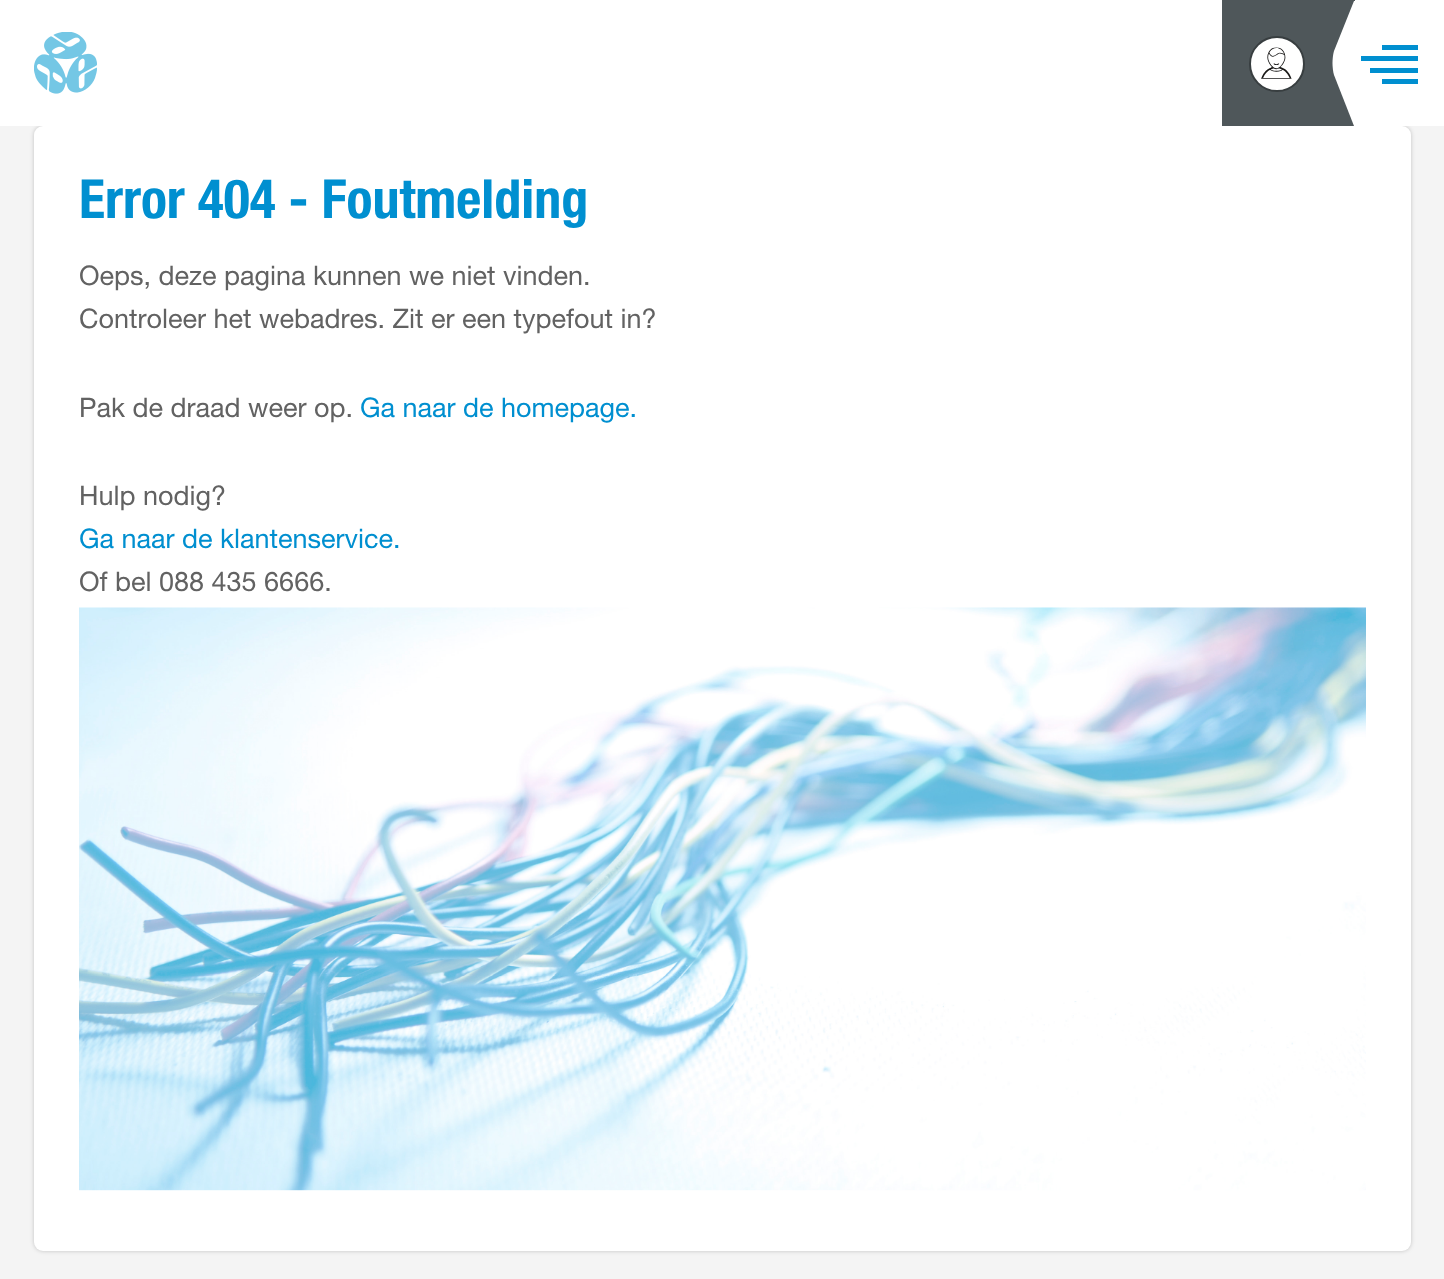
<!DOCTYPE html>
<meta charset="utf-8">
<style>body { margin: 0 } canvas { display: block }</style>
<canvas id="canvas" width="1444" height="1279"></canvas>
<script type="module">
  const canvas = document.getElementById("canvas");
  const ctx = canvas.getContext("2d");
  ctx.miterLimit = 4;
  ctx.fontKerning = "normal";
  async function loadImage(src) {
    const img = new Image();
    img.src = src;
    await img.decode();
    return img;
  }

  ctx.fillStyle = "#f4f4f4";
  ctx.fillRect(0, 0, 1444, 1279);
  ctx.fillStyle = "rgba(0, 0, 0, 0.2)";
  ctx.filter = "blur(2px)";
  ctx.beginPath();
  ctx.roundRect(34, 126, 1377, 1125, 9);
  ctx.fill();
  ctx.filter = "none";
  ctx.fillStyle = "#ffffff";
  ctx.fillRect(0, 0, 1444, 126);
  ctx.drawImage(await loadImage("img1.png"), 34, 32, 63, 62);
  ctx.fillStyle = "#4f575a";
  ctx.fillRect(1222, 0, 133, 126);
  ctx.fillStyle = "#ffffff";
  ctx.beginPath();
  ctx.arc(1277, 64, 27, 0, Math.PI * 2);
  ctx.fill();
  ctx.strokeStyle = "#383e40";
  ctx.lineWidth = 2;
  ctx.stroke();
  ctx.drawImage(await loadImage("img2.png"), 1261, 47, 31, 32);
  ctx.beginPath();
  ctx.moveTo(1444, 1);
  ctx.lineTo(1444, 126);
  ctx.lineTo(1354, 126);
  ctx.lineTo(1334, 75);
  ctx.bezierCurveTo(1332, 68, 1332, 58, 1334, 51);
  ctx.lineTo(1354, 1);
  ctx.closePath();
  ctx.fill();
  ctx.fillStyle = "#008fd0";
  ctx.fillRect(1382, 45, 36, 5);
  ctx.fillRect(1361, 56, 57, 5);
  ctx.fillRect(1370, 68, 48, 5);
  ctx.fillRect(1382, 79, 36, 5);
  ctx.fillStyle = "#ffffff";
  ctx.beginPath();
  ctx.roundRect(34, 126, 1377, 1125, 9);
  ctx.fill();
  ctx.font = "54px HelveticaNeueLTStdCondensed";
  ctx.fillStyle = "#008fd0";
  ctx.fillText("Error 404 - Foutmelding", 79, 218);
  ctx.font = "27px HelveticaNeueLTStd";
  ctx.fillStyle = "#626262";
  ctx.fillText("Oeps, deze pagina kunnen we niet vinden.", 79, 285);
  ctx.fillText("Controleer het webadres. Zit er een typefout in?", 79, 328);
  ctx.fillText("Pak de draad weer op.", 79, 417);
  ctx.fillStyle = "#008fd0";
  ctx.fillText("Ga naar de homepage.", 360, 417);
  ctx.fillStyle = "#626262";
  ctx.fillText("Hulp nodig?", 79, 505);
  ctx.fillStyle = "#008fd0";
  ctx.fillText("Ga naar de klantenservice.", 79, 548);
  ctx.fillStyle = "#626262";
  ctx.fillText("Of bel 088 435 6666.", 79, 591);
  ctx.drawImage(await loadImage("img3.png"), 79, 607, 1287, 584);
</script>
